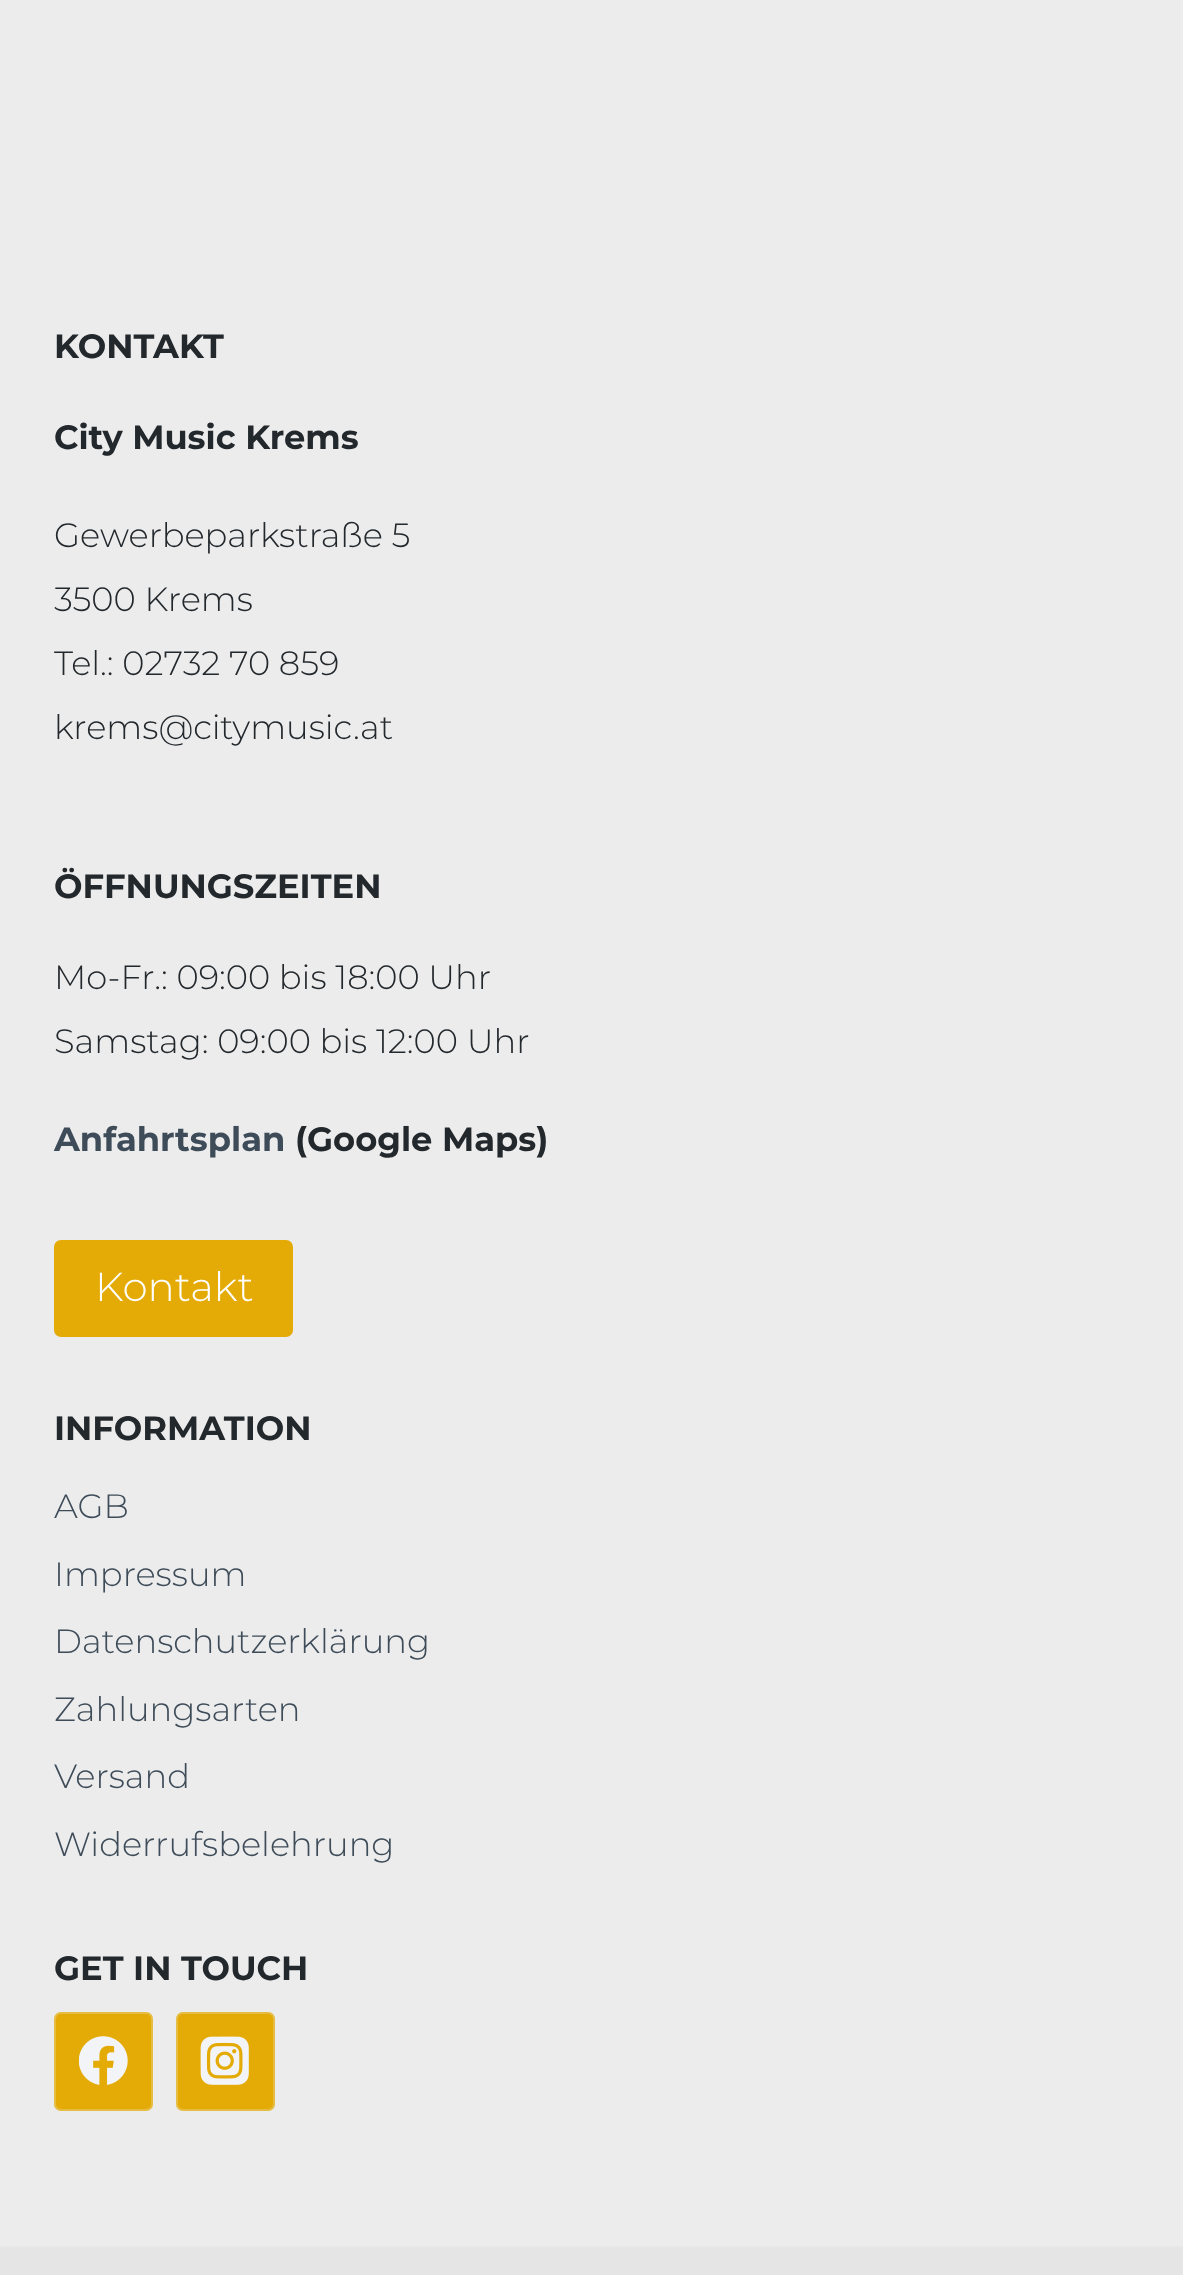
<!DOCTYPE html>
<meta charset="utf-8">
<style>body { margin: 0 } canvas { display: block }</style>
<canvas id="canvas" width="1183" height="2275"></canvas>
<script type="module">
  const canvas = document.getElementById("canvas");
  const ctx = canvas.getContext("2d");
  ctx.miterLimit = 4;
  ctx.fontKerning = "normal";
  async function loadImage(src) {
    const img = new Image();
    img.src = src;
    await img.decode();
    return img;
  }

  ctx.fillStyle = "#ececec";
  ctx.fillRect(0, 0, 1183, 2275);
  ctx.font = "bold 33.75px Montserrat";
  ctx.fillStyle = "#23282d";
  ctx.fillText("KONTAKT", 54, 358);
  ctx.fillText("City Music Krems", 54, 449);
  ctx.font = "300 33.75px Montserrat";
  ctx.fillText("Gewerbeparkstraße 5", 54, 547);
  ctx.fillText("3500 Krems", 54, 611);
  ctx.fillText("Tel.: 02732 70 859", 54, 675);
  ctx.fillText("krems@citymusic.at", 54, 739);
  ctx.font = "bold 33.75px Montserrat";
  ctx.fillText("ÖFFNUNGSZEITEN", 54, 898);
  ctx.font = "300 33.75px Montserrat";
  ctx.fillText("Mo-Fr.: 09:00 bis 18:00 Uhr", 54, 989);
  ctx.fillText("Samstag: 09:00 bis 12:00 Uhr", 54, 1053);
  ctx.font = "bold 33.75px Montserrat";
  ctx.fillStyle = "#3e4c59";
  ctx.fillText("Anfahrtsplan", 54, 1151);
  ctx.fillStyle = "#23282d";
  ctx.fillText("(Google Maps)", 295, 1151);
  ctx.fillStyle = "#e4ab06";
  ctx.beginPath();
  ctx.roundRect(54, 1240, 239, 97, 7);
  ctx.fill();
  ctx.font = "300 40.5px Montserrat";
  ctx.fillStyle = "#ffffff";
  ctx.fillText("Kontakt", 95, 1301);
  ctx.font = "bold 33.75px Montserrat";
  ctx.fillStyle = "#23282d";
  ctx.fillText("INFORMATION", 54, 1440);
  ctx.font = "300 33.75px Montserrat";
  ctx.fillStyle = "#3e4c59";
  ctx.fillText("AGB", 54, 1518);
  ctx.fillText("Impressum", 54, 1586);
  ctx.fillText("Datenschutzerklärung", 54, 1653);
  ctx.fillText("Zahlungsarten", 54, 1721);
  ctx.fillText("Versand", 54, 1788);
  ctx.fillText("Widerrufsbelehrung", 54, 1856);
  ctx.font = "bold 33.75px Montserrat";
  ctx.fillStyle = "#23282d";
  ctx.fillText("GET IN TOUCH", 54, 1980);
  ctx.fillStyle = "#e4ab06";
  ctx.beginPath();
  ctx.roundRect(54, 2012, 99, 99, 7);
  ctx.fill();
  ctx.beginPath();
  ctx.roundRect(55, 2013, 97, 97, 6);
  ctx.strokeStyle = "rgba(237, 242, 247, 0.25)";
  ctx.lineWidth = 2;
  ctx.stroke();
  ctx.drawImage(await loadImage("img1.png"), 79, 2036, 49, 49);
  ctx.beginPath();
  ctx.roundRect(176, 2012, 99, 99, 7);
  ctx.fill();
  ctx.beginPath();
  ctx.roundRect(177, 2013, 97, 97, 6);
  ctx.stroke();
  ctx.drawImage(await loadImage("img2.png"), 200, 2036, 49, 49);
  ctx.fillStyle = "#e5e5e5";
  ctx.fillRect(0, 2248, 1183, 27);
  ctx.fillStyle = "#e6e7e8";
  ctx.fillRect(0, 2246, 1183, 2);
</script>
